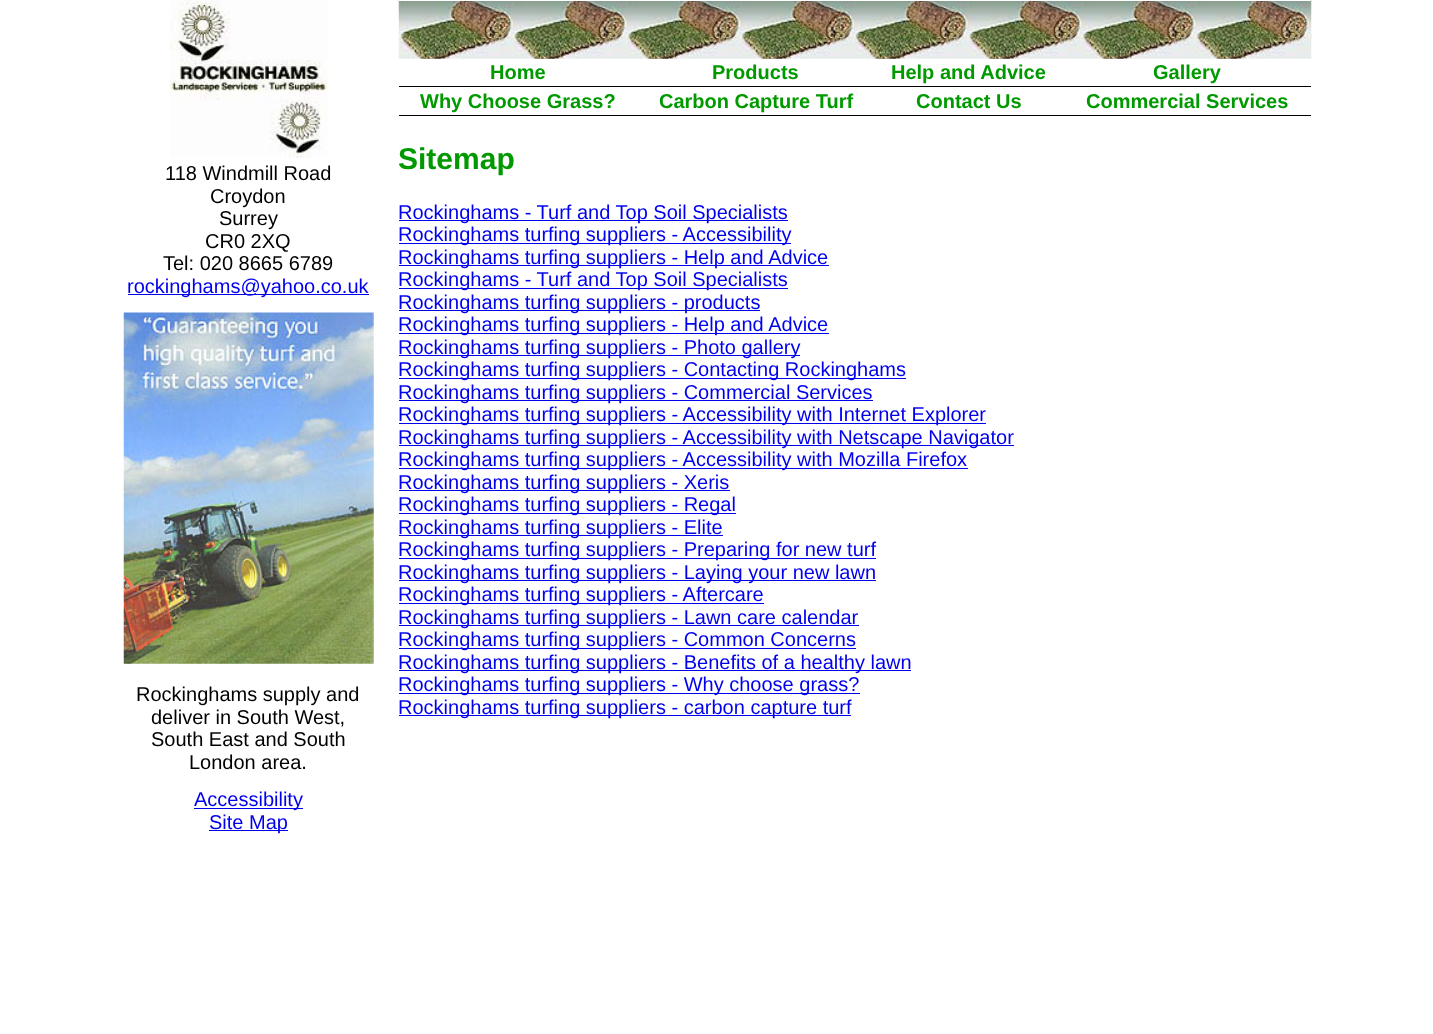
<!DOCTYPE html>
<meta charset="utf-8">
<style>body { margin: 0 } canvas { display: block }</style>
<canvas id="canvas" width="1433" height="1034"></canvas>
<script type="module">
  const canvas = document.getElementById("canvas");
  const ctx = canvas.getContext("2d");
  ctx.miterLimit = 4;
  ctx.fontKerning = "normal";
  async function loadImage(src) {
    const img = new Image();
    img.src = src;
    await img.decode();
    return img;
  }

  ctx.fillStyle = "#ffffff";
  ctx.fillRect(0, 0, 1433, 1034);
  ctx.drawImage(await loadImage("img1.png"), 170, 0, 158, 158);
  ctx.font = "20px Liberation Sans";
  ctx.fillStyle = "#000000";
  ctx.fillText("118 Windmill Road", 165, 180);
  ctx.fillText("Croydon", 210, 203);
  ctx.fillText("Surrey", 219, 225);
  ctx.fillText("CR0 2XQ", 205, 248);
  ctx.fillText("Tel: 020 8665 6789", 163, 270);
  ctx.fillStyle = "#0000ee";
  ctx.fillRect(128, 294, 241, 1);
  ctx.fillText("rockinghams@yahoo.co.uk", 127, 293);
  ctx.drawImage(await loadImage("img2.png"), 123, 312, 251, 352);
  ctx.fillStyle = "#000000";
  ctx.fillText("Rockinghams supply and", 136, 701);
  ctx.fillText("deliver in South West,", 151, 724);
  ctx.fillText("South East and South", 151, 746);
  ctx.fillText("London area.", 189, 769);
  ctx.fillStyle = "#0000ee";
  ctx.fillRect(194, 808, 109, 1);
  ctx.fillText("Accessibility", 194, 806);
  ctx.fillRect(209, 830, 79, 1);
  ctx.fillText("Site Map", 209, 829);
  ctx.drawImage(await loadImage("img3.png"), 398, 0, 914, 59);
  ctx.fillStyle = "#ffffff";
  ctx.fillRect(399, 0, 912, 1);
  ctx.fillStyle = "#000000";
  ctx.fillRect(399, 86, 912, 1);
  ctx.font = "bold 20px Liberation Sans";
  ctx.fillStyle = "#009900";
  ctx.fillText("Home", 490, 79);
  ctx.fillText("Products", 712, 79);
  ctx.fillText("Help and Advice", 891, 79);
  ctx.fillText("Gallery", 1153, 79);
  ctx.fillStyle = "#000000";
  ctx.fillRect(399, 115, 912, 1);
  ctx.fillStyle = "#009900";
  ctx.fillText("Why Choose Grass?", 420, 108);
  ctx.fillText("Carbon Capture Turf", 659, 108);
  ctx.fillText("Contact Us", 916, 108);
  ctx.fillText("Commercial Services", 1086, 108);
  ctx.font = "bold 30px Liberation Sans";
  ctx.fillText("Sitemap", 398, 169);
  ctx.fillStyle = "#0000ee";
  ctx.fillRect(399, 220, 389, 1);
  ctx.font = "20px Liberation Sans";
  ctx.fillText("Rockinghams - Turf and Top Soil Specialists", 398, 219);
  ctx.fillRect(399, 243, 392, 1);
  ctx.fillText("Rockinghams turfing suppliers - Accessibility", 398, 241);
  ctx.fillRect(399, 265, 430, 1);
  ctx.fillText("Rockinghams turfing suppliers - Help and Advice", 398, 264);
  ctx.fillRect(399, 288, 389, 1);
  ctx.fillText("Rockinghams - Turf and Top Soil Specialists", 398, 286);
  ctx.fillRect(399, 310, 361, 1);
  ctx.fillText("Rockinghams turfing suppliers - products", 398, 309);
  ctx.fillRect(399, 333, 430, 1);
  ctx.fillText("Rockinghams turfing suppliers - Help and Advice", 398, 331);
  ctx.fillRect(399, 355, 401, 1);
  ctx.fillText("Rockinghams turfing suppliers - Photo gallery", 398, 354);
  ctx.fillRect(399, 378, 507, 1);
  ctx.fillText("Rockinghams turfing suppliers - Contacting Rockinghams", 398, 376);
  ctx.fillRect(399, 400, 474, 1);
  ctx.fillText("Rockinghams turfing suppliers - Commercial Services", 398, 399);
  ctx.fillRect(399, 423, 587, 1);
  ctx.fillText("Rockinghams turfing suppliers - Accessibility with Internet Explorer", 398, 421);
  ctx.fillRect(399, 445, 615, 1);
  ctx.fillText("Rockinghams turfing suppliers - Accessibility with Netscape Navigator", 398, 444);
  ctx.fillRect(399, 468, 569, 1);
  ctx.fillText("Rockinghams turfing suppliers - Accessibility with Mozilla Firefox", 398, 466);
  ctx.fillRect(399, 490, 331, 1);
  ctx.fillText("Rockinghams turfing suppliers - Xeris", 398, 489);
  ctx.fillRect(399, 513, 337, 1);
  ctx.fillText("Rockinghams turfing suppliers - Regal", 398, 511);
  ctx.fillRect(399, 535, 324, 1);
  ctx.fillText("Rockinghams turfing suppliers - Elite", 398, 534);
  ctx.fillRect(399, 558, 477, 1);
  ctx.fillText("Rockinghams turfing suppliers - Preparing for new turf", 398, 556);
  ctx.fillRect(399, 580, 477, 1);
  ctx.fillText("Rockinghams turfing suppliers - Laying your new lawn", 398, 579);
  ctx.fillRect(399, 603, 365, 1);
  ctx.fillText("Rockinghams turfing suppliers - Aftercare", 398, 601);
  ctx.fillRect(399, 625, 460, 1);
  ctx.fillText("Rockinghams turfing suppliers - Lawn care calendar", 398, 624);
  ctx.fillRect(399, 648, 457, 1);
  ctx.fillText("Rockinghams turfing suppliers - Common Concerns", 398, 646);
  ctx.fillRect(399, 670, 512, 1);
  ctx.fillText("Rockinghams turfing suppliers - Benefits of a healthy lawn", 398, 669);
  ctx.fillRect(399, 693, 461, 1);
  ctx.fillText("Rockinghams turfing suppliers - Why choose grass?", 398, 691);
  ctx.fillRect(399, 715, 452, 1);
  ctx.fillText("Rockinghams turfing suppliers - carbon capture turf", 398, 714);
</script>
